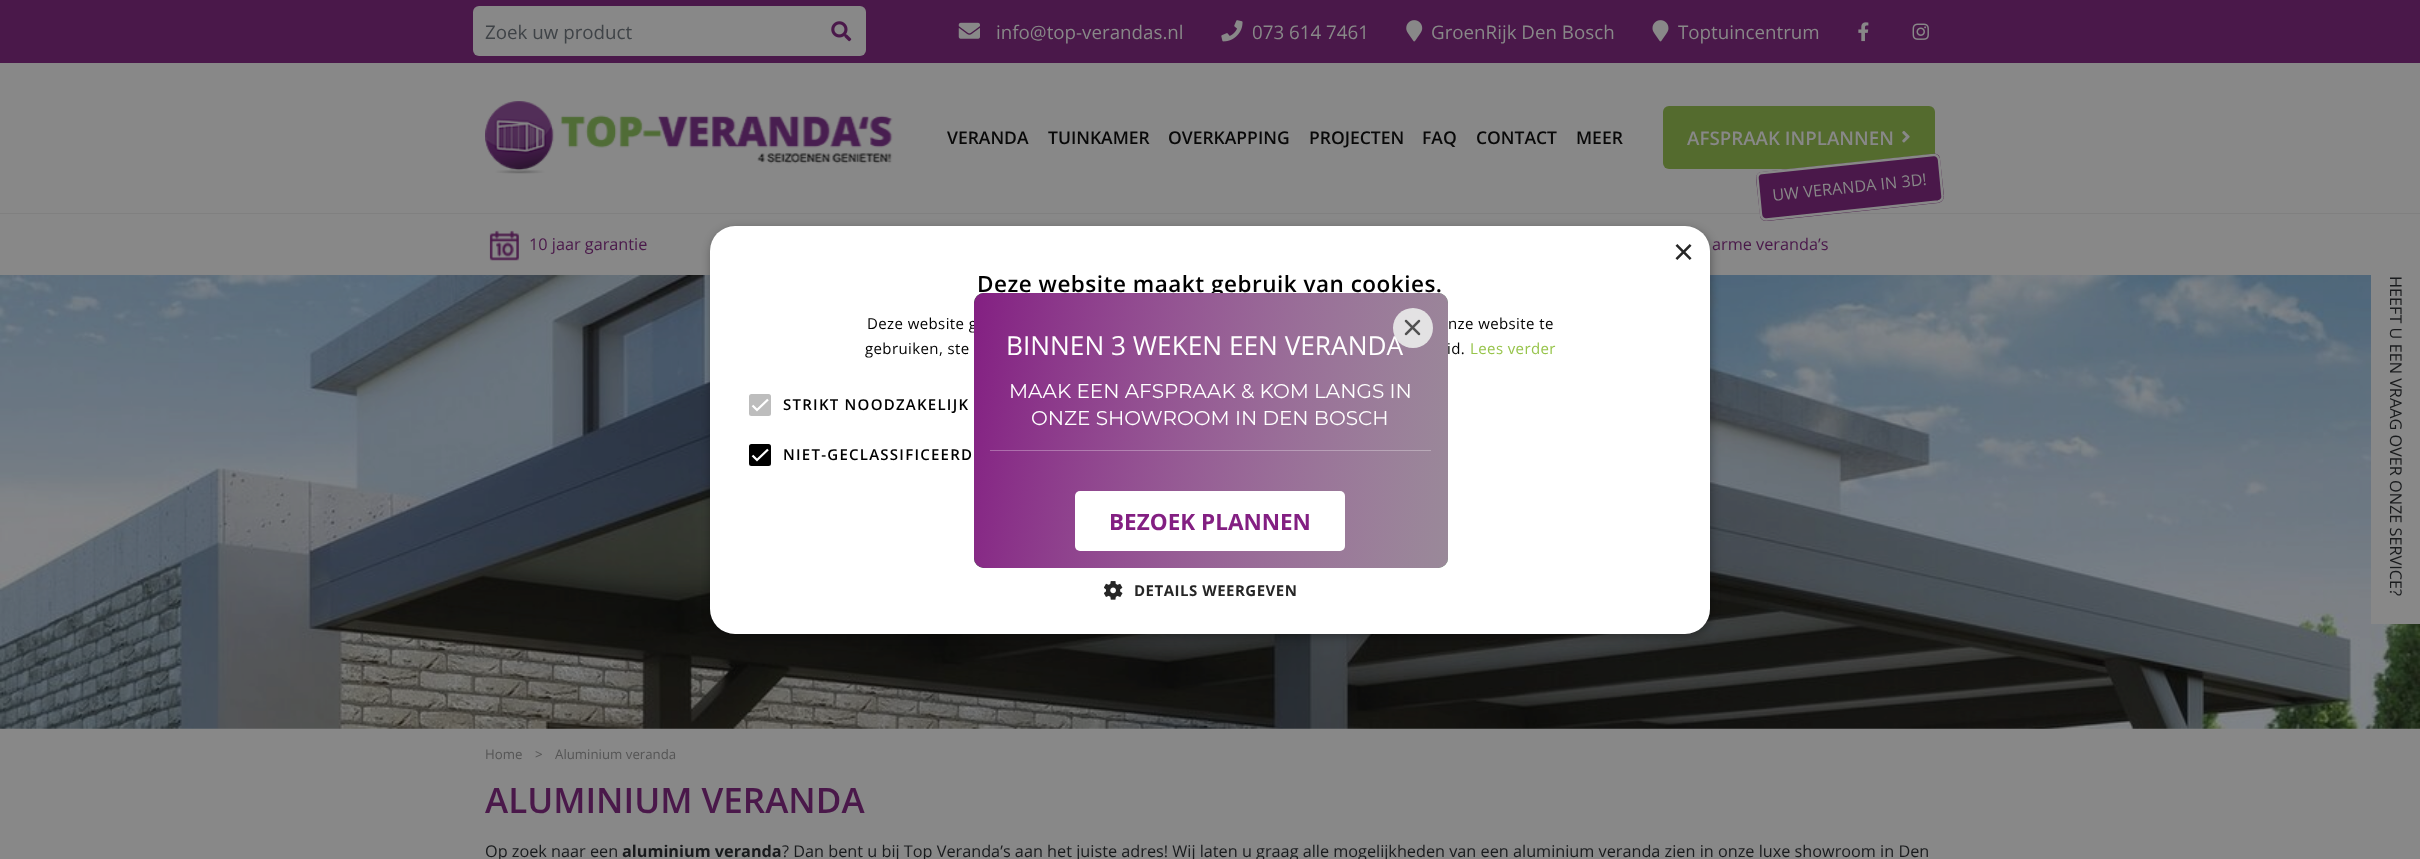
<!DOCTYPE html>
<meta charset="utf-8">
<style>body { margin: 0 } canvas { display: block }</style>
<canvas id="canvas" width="2420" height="859"></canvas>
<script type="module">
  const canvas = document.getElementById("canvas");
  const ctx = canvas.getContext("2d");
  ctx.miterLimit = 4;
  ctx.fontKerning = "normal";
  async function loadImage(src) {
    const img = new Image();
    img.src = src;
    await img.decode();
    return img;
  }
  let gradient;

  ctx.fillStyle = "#888888";
  ctx.fillRect(0, 0, 2420, 859);
  ctx.fillStyle = "#4a184a";
  ctx.fillRect(0, 0, 2420, 63);
  ctx.fillStyle = "#888888";
  ctx.beginPath();
  ctx.roundRect(473, 6, 393, 50, 6);
  ctx.fill();
  ctx.font = "18.75px Open Sans";
  ctx.fillStyle = "#3f4347";
  ctx.fillText("Zoek uw product", 485, 39);
  ctx.drawImage(await loadImage("img1.png"), 831, 21, 21, 21);
  ctx.drawImage(await loadImage("img2.png"), 958, 22, 22, 17);
  ctx.fillStyle = "#888888";
  ctx.fillText("info@top-verandas.nl", 996, 39);
  ctx.drawImage(await loadImage("img3.png"), 1221, 20, 22, 22);
  ctx.fillText("073 614 7461", 1252, 39);
  ctx.drawImage(await loadImage("img4.png"), 1406, 20, 17, 22);
  ctx.fillText("GroenRijk Den Bosch", 1431, 39);
  ctx.drawImage(await loadImage("img5.png"), 1652, 20, 17, 22);
  ctx.fillText("Toptuincentrum", 1678, 39);
  ctx.drawImage(await loadImage("img6.png"), 1858, 22, 11, 20);
  ctx.drawImage(await loadImage("img7.png"), 1912, 23, 17, 17);
  ctx.drawImage(await loadImage("img8.png"), 485, 101, 408, 73);
  ctx.font = "600 17.5px Open Sans";
  ctx.fillStyle = "#090909";
  ctx.fillText("VERANDA", 947, 144);
  ctx.fillText("TUINKAMER", 1048, 144);
  ctx.fillText("OVERKAPPING", 1168, 144);
  ctx.fillText("PROJECTEN", 1309, 144);
  ctx.fillText("FAQ", 1422, 144);
  ctx.fillText("CONTACT", 1476, 144);
  ctx.fillText("MEER", 1576, 144);
  ctx.fillStyle = "#546b2e";
  ctx.beginPath();
  ctx.roundRect(1663, 106, 272, 63, 6);
  ctx.fill();
  ctx.font = "600 18.75px Open Sans";
  ctx.fillStyle = "#888888";
  ctx.fillText("AFSPRAAK INPLANNEN", 1687, 145);
  ctx.drawImage(await loadImage("img9.png"), 1902, 130, 8, 13);
  ctx.fillStyle = "#808080";
  ctx.fillRect(0, 213, 2420, 1);
  ctx.fillStyle = "#4a184a";
  ctx.beginPath();
  ctx.moveTo(1762, 172);
  ctx.lineTo(1933, 154);
  ctx.bezierCurveTo(1937, 153, 1940, 156, 1940, 159);
  ctx.lineTo(1944, 196);
  ctx.bezierCurveTo(1944, 199, 1942, 202, 1938, 203);
  ctx.lineTo(1767, 221);
  ctx.bezierCurveTo(1763, 221, 1760, 219, 1760, 215);
  ctx.lineTo(1756, 179);
  ctx.bezierCurveTo(1756, 175, 1758, 172, 1762, 172);
  ctx.closePath();
  ctx.fill();
  ctx.beginPath();
  ctx.moveTo(1762, 173);
  ctx.lineTo(1933.5, 155);
  ctx.bezierCurveTo(1936, 154.5, 1938.5, 156.5, 1939, 159.5);
  ctx.lineTo(1942.5, 196);
  ctx.bezierCurveTo(1943, 198.5, 1941, 201, 1938, 201.5);
  ctx.lineTo(1766.5, 219.5);
  ctx.bezierCurveTo(1764, 220, 1761.5, 218, 1761, 215);
  ctx.lineTo(1757.5, 178.5);
  ctx.bezierCurveTo(1757, 175.5, 1759, 173, 1762, 173);
  ctx.closePath();
  ctx.strokeStyle = "#888888";
  ctx.lineWidth = 2.5;
  ctx.stroke();
  ctx.font = "16.25px Open Sans";
  ctx.fillStyle = "#888888";
  ctx.save();
  ctx.translate(1773, 201);
  ctx.rotate(-6 * Math.PI / 180);
  ctx.fillText("UW VERANDA IN 3D!", 0, 0);
  ctx.restore();
  ctx.drawImage(await loadImage("img10.png"), 489, 230, 30, 31);
  ctx.fillStyle = "#4a184a";
  ctx.fillText("10 jaar garantie", 529, 250);
  ctx.fillText("arme veranda’s", 1712, 250);
  ctx.font = "600 35px Open Sans";
  ctx.fillText("ALUMINIUM VERANDA", 485, 813);
  ctx.font = "16.25px Open Sans";
  ctx.fillStyle = "#191b1d";
  ctx.fillText("Op zoek naar een", 485, 857);
  ctx.font = "bold 16.25px Open Sans";
  ctx.fillText("aluminium veranda", 622, 857);
  ctx.font = "16.25px Open Sans";
  ctx.fillText("? Dan bent u bij Top Veranda’s aan het juiste adres! Wij laten u graag alle mogelijkheden van een aluminium veranda zien in onze luxe showroom in Den", 782, 857);
  ctx.drawImage(await loadImage("img11.png"), 0, 275, 2420, 454);
  ctx.font = "13.25px Open Sans";
  ctx.fillStyle = "#555555";
  ctx.fillText("Home", 485, 759);
  ctx.fillText(">", 535, 759);
  ctx.fillText("Aluminium veranda", 555, 759);
  ctx.fillStyle = "rgba(0, 0, 0, 0.35)";
  ctx.filter = "blur(5px)";
  ctx.beginPath();
  ctx.roundRect(711, 229, 1000, 407, 25);
  ctx.fill();
  ctx.filter = "none";
  ctx.fillStyle = "#ffffff";
  ctx.beginPath();
  ctx.roundRect(710, 226, 1000, 408, 25);
  ctx.fill();
  ctx.font = "36px Liberation Sans";
  ctx.fillStyle = "#262626";
  ctx.fillText("×", 1673, 264);
  ctx.letterSpacing = "0.5px";
  ctx.font = "600 22.5px Open Sans";
  ctx.fillStyle = "#000000";
  ctx.fillText("Deze website maakt gebruik van cookies.", 977, 292);
  ctx.letterSpacing = "0.4px";
  ctx.font = "15px Open Sans";
  ctx.fillText("Deze website g", 867, 329);
  ctx.fillText("nze website te", 1448, 329);
  ctx.fillText("gebruiken, ste", 865, 354);
  ctx.fillText("id.", 1447, 354);
  ctx.fillStyle = "#97c44b";
  ctx.fillText("Lees verder", 1470, 354);
  ctx.fillStyle = "#bdbdbd";
  ctx.beginPath();
  ctx.roundRect(749, 394, 22, 22, 2.5);
  ctx.fill();
  ctx.beginPath();
  ctx.moveTo(752.5, 405.5);
  ctx.lineTo(757, 410);
  ctx.lineTo(768, 399.5);
  ctx.strokeStyle = "#ffffff";
  ctx.lineWidth = 2.3;
  ctx.stroke();
  ctx.letterSpacing = "1.25px";
  ctx.font = "600 15px Open Sans";
  ctx.fillStyle = "#000000";
  ctx.fillText("STRIKT NOODZAKELIJK", 783, 410);
  ctx.beginPath();
  ctx.roundRect(750.5, 445.5, 19, 19, 1);
  ctx.fill();
  ctx.strokeStyle = "#000000";
  ctx.lineWidth = 3;
  ctx.stroke();
  ctx.beginPath();
  ctx.moveTo(752.5, 455.5);
  ctx.lineTo(757, 460);
  ctx.lineTo(768, 449.5);
  ctx.strokeStyle = "#ffffff";
  ctx.lineWidth = 2.3;
  ctx.stroke();
  ctx.fillText("NIET-GECLASSIFICEERD", 783, 460);
  ctx.drawImage(await loadImage("img12.png"), 1104, 581, 19, 19);
  ctx.letterSpacing = "0.5px";
  ctx.font = "bold 15px Open Sans";
  ctx.fillStyle = "#262626";
  ctx.fillText("DETAILS WEERGEVEN", 1134, 596);
  ctx.fillStyle = "#888888";
  ctx.fillRect(2371, 275, 49, 349);
  ctx.letterSpacing = "0px";
  ctx.font = "16.25px Open Sans";
  ctx.fillStyle = "#191b1d";
  ctx.save();
  ctx.translate(2390, 276);
  ctx.rotate(90 * Math.PI / 180);
  ctx.fillText("HEEFT U EEN VRAAG OVER ONZE SERVICE?", 0, 0);
  ctx.restore();
  ctx.fillStyle = "#0f571c";
  ctx.beginPath();
  ctx.roundRect(974, 293, 474, 275, 10);
  ctx.fill();
  gradient = ctx.createLinearGradient(959, 395, 1462, 465);
  gradient.addColorStop(0, "#831f82");
  gradient.addColorStop(1, "rgba(228, 164, 220, 0.65)");
  ctx.fillStyle = gradient;
  ctx.beginPath();
  ctx.roundRect(974, 293, 474, 275, 10);
  ctx.fill();
  ctx.font = "26.25px Open Sans";
  ctx.fillStyle = "#ffffff";
  ctx.fillText("BINNEN 3 WEKEN EEN VERANDA", 1006, 355);
  ctx.fillStyle = "rgba(231, 231, 231, 0.95)";
  ctx.beginPath();
  ctx.arc(1413, 328, 20, 0, Math.PI * 2);
  ctx.fill();
  ctx.drawImage(await loadImage("img13.png"), 1404, 319, 17, 17);
  ctx.font = "20px Montserrat";
  ctx.fillStyle = "#ffffff";
  ctx.fillText("MAAK EEN AFSPRAAK & KOM LANGS IN", 1009, 398);
  ctx.fillText("ONZE SHOWROOM IN DEN BOSCH", 1031, 425);
  ctx.fillStyle = "rgba(255, 255, 255, 0.3)";
  ctx.fillRect(990, 450, 441, 1);
  ctx.fillStyle = "#ffffff";
  ctx.beginPath();
  ctx.roundRect(1075, 491, 270, 60, 5);
  ctx.fill();
  ctx.font = "bold 22.5px Open Sans";
  ctx.fillStyle = "#831f82";
  ctx.fillText("BEZOEK PLANNEN", 1109, 530);
</script>
